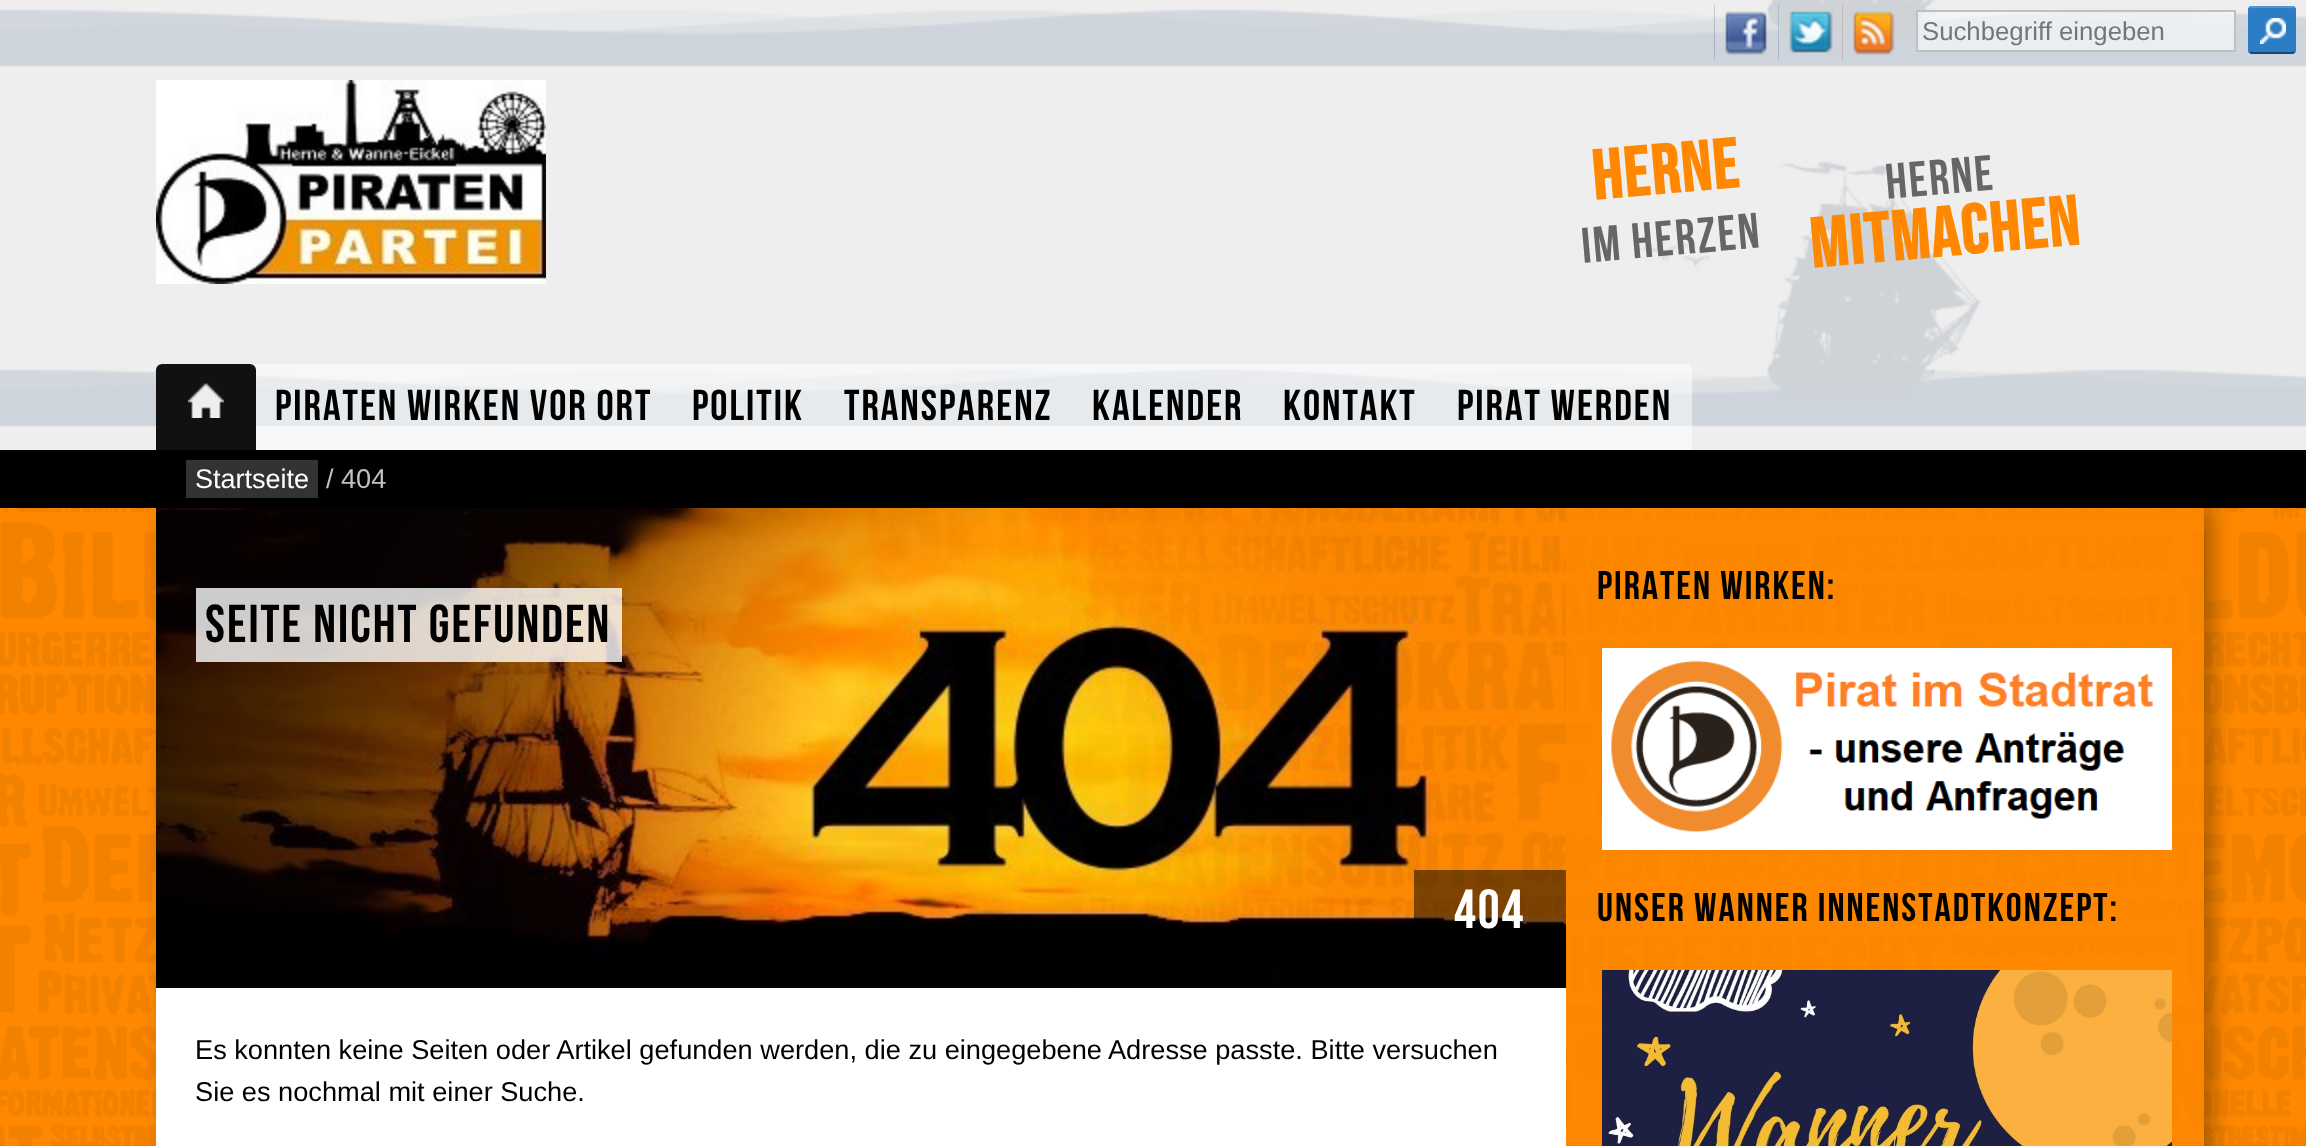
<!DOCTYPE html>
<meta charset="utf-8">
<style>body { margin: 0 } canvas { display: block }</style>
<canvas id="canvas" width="2306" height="1146"></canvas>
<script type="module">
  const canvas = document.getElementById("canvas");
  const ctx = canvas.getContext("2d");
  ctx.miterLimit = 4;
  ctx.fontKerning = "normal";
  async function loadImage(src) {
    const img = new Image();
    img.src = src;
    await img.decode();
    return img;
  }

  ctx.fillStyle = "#ffffff";
  ctx.fillRect(0, 0, 2306, 1146);
  ctx.drawImage(await loadImage("img1.png"), 0, 508, 2306, 638);
  ctx.fillStyle = "#eeeeee";
  ctx.fillRect(0, 0, 2306, 450);
  ctx.drawImage(await loadImage("img2.png"), 0, 0, 2306, 427);
  ctx.drawImage(await loadImage("img3.png"), 1714, 2, 53, 60);
  ctx.drawImage(await loadImage("img4.png"), 1778, 2, 55, 60);
  ctx.drawImage(await loadImage("img5.png"), 1842, 2, 53, 60);
  ctx.fillStyle = "rgba(255, 255, 255, 0.6)";
  ctx.beginPath();
  ctx.rect(1917, 11, 318, 40);
  ctx.fill();
  ctx.strokeStyle = "#c0c0c0";
  ctx.lineWidth = 2;
  ctx.stroke();
  ctx.font = "25.75px Liberation Sans";
  ctx.fillStyle = "#757575";
  ctx.fillText("Suchbegriff eingeben", 1922, 40);
  ctx.fillStyle = "#2d7dc5";
  ctx.beginPath();
  ctx.roundRect(2248, 6, 48, 48, 4);
  ctx.fill();
  ctx.drawImage(await loadImage("img6.png"), 2260, 18, 26, 26);
  ctx.beginPath();
  ctx.moveTo(2250, 8);
  ctx.lineTo(2252, 7);
  ctx.lineTo(2292, 7);
  ctx.lineTo(2294, 8);
  ctx.strokeStyle = "#4e96d7";
  ctx.stroke();
  ctx.beginPath();
  ctx.moveTo(2294, 8);
  ctx.lineTo(2295, 10);
  ctx.lineTo(2295, 50);
  ctx.lineTo(2294, 52);
  ctx.strokeStyle = "#2d7dc5";
  ctx.stroke();
  ctx.beginPath();
  ctx.moveTo(2294, 52);
  ctx.lineTo(2292, 53);
  ctx.lineTo(2252, 53);
  ctx.lineTo(2250, 52);
  ctx.strokeStyle = "#1a4872";
  ctx.stroke();
  ctx.beginPath();
  ctx.moveTo(2250, 52);
  ctx.lineTo(2249, 50);
  ctx.lineTo(2249, 10);
  ctx.lineTo(2250, 8);
  ctx.strokeStyle = "#2d7dc5";
  ctx.stroke();
  ctx.drawImage(await loadImage("img7.png"), 156, 80, 390, 204);
  ctx.letterSpacing = "2px";
  ctx.font = "bold 69.5px Bebas Neue";
  ctx.fillStyle = "#ff8800";
  ctx.save();
  ctx.translate(1594, 200);
  ctx.rotate(-5 * Math.PI / 180);
  ctx.fillText("Herne", 0, 0);
  ctx.restore();
  ctx.font = "50px Bebas Neue";
  ctx.fillStyle = "#666666";
  ctx.save();
  ctx.translate(1583, 263);
  ctx.rotate(-5 * Math.PI / 180);
  ctx.fillText("im HERZen", 0, 0);
  ctx.restore();
  ctx.save();
  ctx.translate(1887, 199);
  ctx.rotate(-5 * Math.PI / 180);
  ctx.fillText("Herne", 0, 0);
  ctx.restore();
  ctx.font = "bold 69.5px Bebas Neue";
  ctx.fillStyle = "#ff8800";
  ctx.save();
  ctx.translate(1812, 268);
  ctx.rotate(-5 * Math.PI / 180);
  ctx.fillText("mitmachen", 0, 0);
  ctx.restore();
  ctx.fillStyle = "rgba(255, 255, 255, 0.5)";
  ctx.beginPath();
  ctx.roundRect(156, 364, 1536, 86, [6, 6, 0, 0]);
  ctx.fill();
  ctx.fillStyle = "#111111";
  ctx.beginPath();
  ctx.roundRect(156, 364, 100, 86, [6, 6, 0, 0]);
  ctx.fill();
  ctx.drawImage(await loadImage("img8.png"), 188, 383, 36, 35);
  ctx.font = "43.25px Bebas Neue";
  ctx.fillStyle = "#000000";
  ctx.fillText("Piraten wirken vor Ort", 275, 420);
  ctx.fillText("Politik", 692, 420);
  ctx.fillText("Transparenz", 844, 420);
  ctx.fillText("Kalender", 1092, 420);
  ctx.fillText("Kontakt", 1283, 420);
  ctx.fillText("Pirat werden", 1457, 420);
  ctx.fillRect(0, 450, 2306, 58);
  ctx.fillStyle = "rgba(0, 0, 0, 0.3)";
  ctx.filter = "blur(10px)";
  ctx.beginPath();
  ctx.rect(166, 508, 2048, 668);
  ctx.fill();
  ctx.filter = "none";
  ctx.fillStyle = "#333333";
  ctx.fillRect(186, 460, 132, 38);
  ctx.letterSpacing = "0px";
  ctx.font = "27px Liberation Sans";
  ctx.fillStyle = "#ffffff";
  ctx.fillText("Startseite", 195, 488);
  ctx.fillStyle = "#c0c0c0";
  ctx.fillText("/", 326, 488);
  ctx.font = "27.2px Liberation Sans";
  ctx.fillText("404", 341, 488);
  ctx.fillStyle = "#ffffff";
  ctx.fillRect(156, 988, 1410, 158);
  ctx.drawImage(await loadImage("img9.png"), 156, 508, 1410, 480);
  ctx.fillStyle = "rgba(255, 255, 255, 0.8)";
  ctx.fillRect(196, 588, 426, 74);
  ctx.letterSpacing = "2px";
  ctx.font = "53.25px Bebas Neue";
  ctx.fillStyle = "#000000";
  ctx.fillText("Seite nicht gefunden", 205, 642);
  ctx.fillStyle = "rgba(0, 0, 0, 0.5)";
  ctx.fillRect(1414, 870, 152, 57);
  ctx.font = "55px Bebas Neue";
  ctx.fillStyle = "#ffffff";
  ctx.fillText("404", 1454, 928);
  ctx.letterSpacing = "0px";
  ctx.font = "27.2px Liberation Sans";
  ctx.fillStyle = "#000000";
  ctx.fillText("Es konnten keine Seiten oder Artikel gefunden werden, die zu eingegebene Adresse passte. Bitte versuchen", 195, 1059);
  ctx.fillText("Sie es nochmal mit einer Suche.", 195, 1101);
  ctx.drawImage(await loadImage("img10.png"), 1566, 508, 638, 638);
  ctx.letterSpacing = "2px";
  ctx.font = "40px Bebas Neue";
  ctx.fillText("Piraten wirken:", 1597, 599);
  ctx.drawImage(await loadImage("img11.png"), 1602, 648, 570, 202);
  ctx.fillText("Unser Wanner Innenstadtkonzept:", 1597, 921);
  ctx.drawImage(await loadImage("img12.png"), 1602, 970, 570, 176);
</script>
